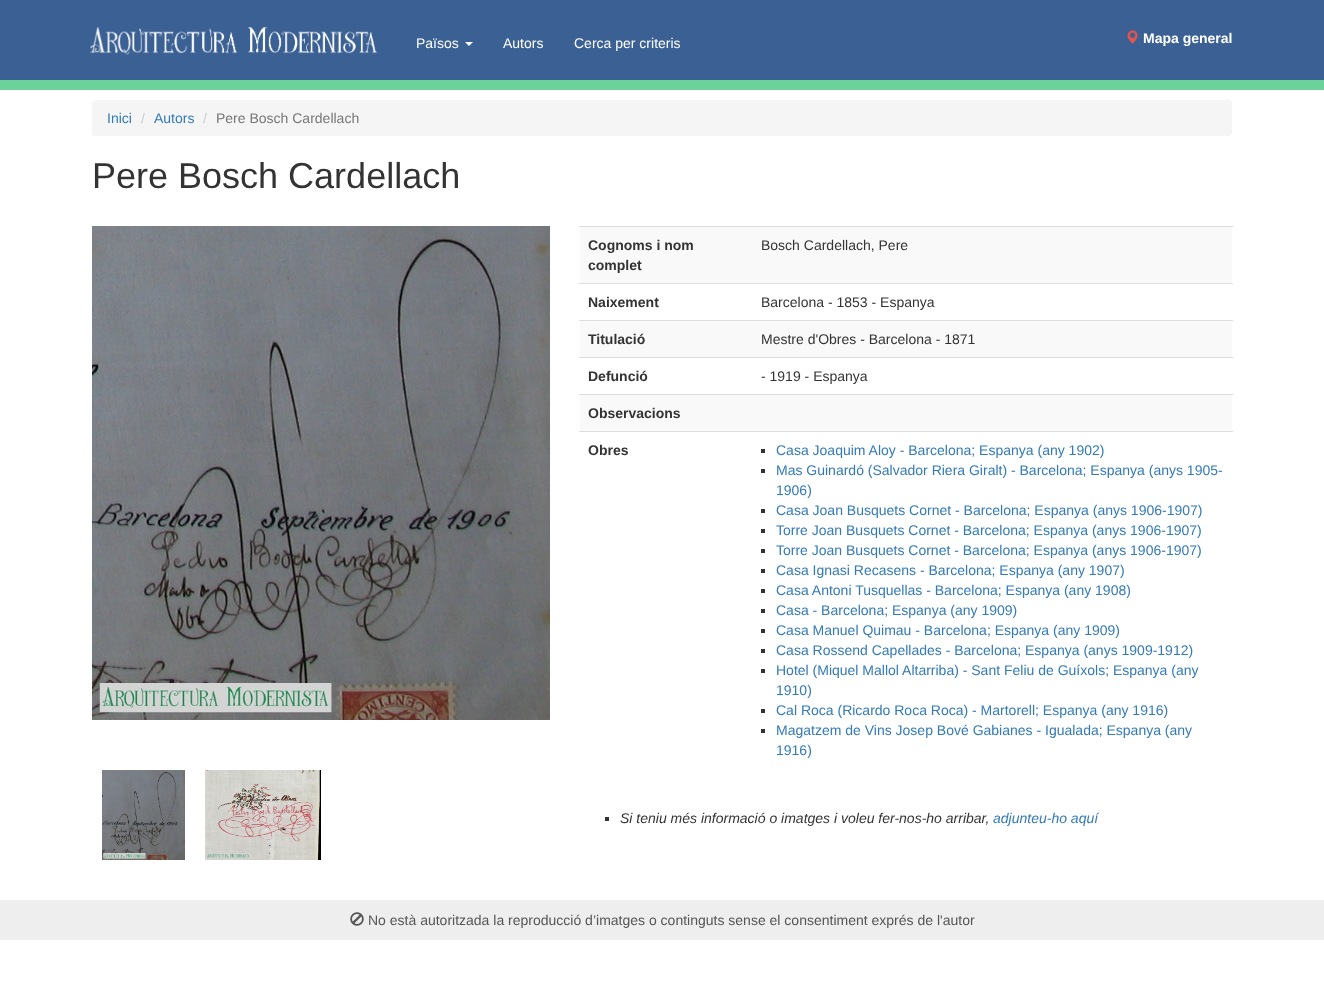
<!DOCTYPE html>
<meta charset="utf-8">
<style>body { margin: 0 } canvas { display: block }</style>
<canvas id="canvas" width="1324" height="1002"></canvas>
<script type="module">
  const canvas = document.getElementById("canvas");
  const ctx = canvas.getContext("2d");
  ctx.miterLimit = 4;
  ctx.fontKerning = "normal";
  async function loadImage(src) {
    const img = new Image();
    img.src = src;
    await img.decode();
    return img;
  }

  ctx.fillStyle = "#ffffff";
  ctx.fillRect(0, 0, 1324, 1002);
  ctx.fillStyle = "#3b6094";
  ctx.fillRect(0, 0, 1324, 80);
  ctx.fillStyle = "#6bd29b";
  ctx.fillRect(0, 80, 1324, 10);
  ctx.drawImage(await loadImage("img1.png"), 89, 27, 289, 28);
  ctx.font = "14px Liberation Sans";
  ctx.fillStyle = "#ffffff";
  ctx.fillText("Països", 416, 48);
  ctx.beginPath();
  ctx.moveTo(465, 42);
  ctx.lineTo(473, 42);
  ctx.lineTo(469, 46);
  ctx.closePath();
  ctx.fill();
  ctx.fillText("Autors", 503, 48);
  ctx.fillText("Cerca per criteris", 574, 48);
  ctx.drawImage(await loadImage("img2.png"), 1127, 30, 11, 14);
  ctx.font = "bold 14px Liberation Sans";
  ctx.fillText("Mapa general", 1143, 43);
  ctx.fillStyle = "#f5f5f5";
  ctx.beginPath();
  ctx.roundRect(92, 100, 1140, 36, 4);
  ctx.fill();
  ctx.font = "14px Liberation Sans";
  ctx.fillStyle = "#337ab7";
  ctx.fillText("Inici", 107, 123);
  ctx.fillStyle = "#cccccc";
  ctx.fillText("/", 141, 123);
  ctx.fillStyle = "#337ab7";
  ctx.fillText("Autors", 154, 123);
  ctx.fillStyle = "#cccccc";
  ctx.fillText("/", 203, 123);
  ctx.fillStyle = "#777777";
  ctx.fillText("Pere Bosch Cardellach", 216, 123);
  ctx.font = "36px Liberation Sans";
  ctx.fillStyle = "#333333";
  ctx.fillText("Pere Bosch Cardellach", 92, 188);
  ctx.drawImage(await loadImage("img3.png"), 92, 226, 458, 494);
  ctx.drawImage(await loadImage("img4.png"), 102, 770, 83, 90);
  ctx.drawImage(await loadImage("img5.png"), 205, 770, 116, 90);
  ctx.fillStyle = "#f9f9f9";
  ctx.fillRect(580, 227, 652, 56);
  ctx.font = "bold 14px Liberation Sans";
  ctx.fillStyle = "#333333";
  ctx.fillText("Cognoms i nom", 588, 250);
  ctx.fillText("complet", 588, 270);
  ctx.fillStyle = "#dddddd";
  ctx.fillRect(579, 226, 654, 1);
  ctx.font = "14px Liberation Sans";
  ctx.fillStyle = "#333333";
  ctx.fillText("Bosch Cardellach, Pere", 761, 250);
  ctx.font = "bold 14px Liberation Sans";
  ctx.fillText("Naixement", 588, 307);
  ctx.fillStyle = "#dddddd";
  ctx.fillRect(579, 283, 654, 1);
  ctx.font = "14px Liberation Sans";
  ctx.fillStyle = "#333333";
  ctx.fillText("Barcelona - 1853 - Espanya", 761, 307);
  ctx.fillStyle = "#f9f9f9";
  ctx.fillRect(580, 321, 652, 36);
  ctx.font = "bold 14px Liberation Sans";
  ctx.fillStyle = "#333333";
  ctx.fillText("Titulació", 588, 344);
  ctx.fillStyle = "#dddddd";
  ctx.fillRect(579, 320, 654, 1);
  ctx.font = "14px Liberation Sans";
  ctx.fillStyle = "#333333";
  ctx.fillText("Mestre d'Obres - Barcelona - 1871", 761, 344);
  ctx.font = "bold 14px Liberation Sans";
  ctx.fillText("Defunció", 588, 381);
  ctx.fillStyle = "#dddddd";
  ctx.fillRect(579, 357, 654, 1);
  ctx.font = "14px Liberation Sans";
  ctx.fillStyle = "#333333";
  ctx.fillText("- 1919 - Espanya", 761, 381);
  ctx.fillStyle = "#f9f9f9";
  ctx.fillRect(580, 395, 652, 36);
  ctx.fillStyle = "#dddddd";
  ctx.fillRect(579, 394, 654, 1);
  ctx.font = "bold 14px Liberation Sans";
  ctx.fillStyle = "#333333";
  ctx.fillText("Observacions", 588, 418);
  ctx.fillText("Obres", 588, 455);
  ctx.fillStyle = "#dddddd";
  ctx.fillRect(579, 431, 654, 1);
  ctx.fillStyle = "#333333";
  ctx.fillRect(761, 449, 4, 4);
  ctx.font = "14px Liberation Sans";
  ctx.fillStyle = "#337ab7";
  ctx.fillText("Casa Joaquim Aloy - Barcelona; Espanya (any 1902)", 776, 455);
  ctx.fillStyle = "#333333";
  ctx.fillRect(761, 469, 4, 4);
  ctx.fillStyle = "#337ab7";
  ctx.fillText("Mas Guinardó (Salvador Riera Giralt) - Barcelona; Espanya (anys 1905-", 776, 475);
  ctx.fillText("1906)", 776, 495);
  ctx.fillStyle = "#333333";
  ctx.fillRect(761, 509, 4, 4);
  ctx.fillStyle = "#337ab7";
  ctx.fillText("Casa Joan Busquets Cornet - Barcelona; Espanya (anys 1906-1907)", 776, 515);
  ctx.fillStyle = "#333333";
  ctx.fillRect(761, 529, 4, 4);
  ctx.fillStyle = "#337ab7";
  ctx.fillText("Torre Joan Busquets Cornet - Barcelona; Espanya (anys 1906-1907)", 776, 535);
  ctx.fillStyle = "#333333";
  ctx.fillRect(761, 549, 4, 4);
  ctx.fillStyle = "#337ab7";
  ctx.fillText("Torre Joan Busquets Cornet - Barcelona; Espanya (anys 1906-1907)", 776, 555);
  ctx.fillStyle = "#333333";
  ctx.fillRect(761, 569, 4, 4);
  ctx.fillStyle = "#337ab7";
  ctx.fillText("Casa Ignasi Recasens - Barcelona; Espanya (any 1907)", 776, 575);
  ctx.fillStyle = "#333333";
  ctx.fillRect(761, 589, 4, 4);
  ctx.fillStyle = "#337ab7";
  ctx.fillText("Casa Antoni Tusquellas - Barcelona; Espanya (any 1908)", 776, 595);
  ctx.fillStyle = "#333333";
  ctx.fillRect(761, 609, 4, 4);
  ctx.fillStyle = "#337ab7";
  ctx.fillText("Casa - Barcelona; Espanya (any 1909)", 776, 615);
  ctx.fillStyle = "#333333";
  ctx.fillRect(761, 629, 4, 4);
  ctx.fillStyle = "#337ab7";
  ctx.fillText("Casa Manuel Quimau - Barcelona; Espanya (any 1909)", 776, 635);
  ctx.fillStyle = "#333333";
  ctx.fillRect(761, 649, 4, 4);
  ctx.fillStyle = "#337ab7";
  ctx.fillText("Casa Rossend Capellades - Barcelona; Espanya (anys 1909-1912)", 776, 655);
  ctx.fillStyle = "#333333";
  ctx.fillRect(761, 669, 4, 4);
  ctx.fillStyle = "#337ab7";
  ctx.fillText("Hotel (Miquel Mallol Altarriba) - Sant Feliu de Guíxols; Espanya (any", 776, 675);
  ctx.fillText("1910)", 776, 695);
  ctx.fillStyle = "#333333";
  ctx.fillRect(761, 709, 4, 4);
  ctx.fillStyle = "#337ab7";
  ctx.fillText("Cal Roca (Ricardo Roca Roca) - Martorell; Espanya (any 1916)", 776, 715);
  ctx.fillStyle = "#333333";
  ctx.fillRect(761, 729, 4, 4);
  ctx.fillStyle = "#337ab7";
  ctx.fillText("Magatzem de Vins Josep Bové Gabianes - Igualada; Espanya (any", 776, 735);
  ctx.fillText("1916)", 776, 755);
  ctx.fillStyle = "#333333";
  ctx.fillRect(605, 817, 4, 4);
  ctx.font = "italic 14px Liberation Sans";
  ctx.fillText("Si teniu més informació o imatges i voleu fer-nos-ho arribar,", 620, 823);
  ctx.fillStyle = "#337ab7";
  ctx.fillText("adjunteu-ho aquí", 993, 823);
  ctx.fillStyle = "#eeeeee";
  ctx.fillRect(0, 900, 1324, 40);
  ctx.drawImage(await loadImage("img6.png"), 350, 912, 14, 14);
  ctx.font = "14px Liberation Sans";
  ctx.fillStyle = "#555555";
  ctx.fillText("No està autoritzada la reproducció d’imatges o continguts sense el consentiment exprés de l'autor", 368, 925);
</script>
